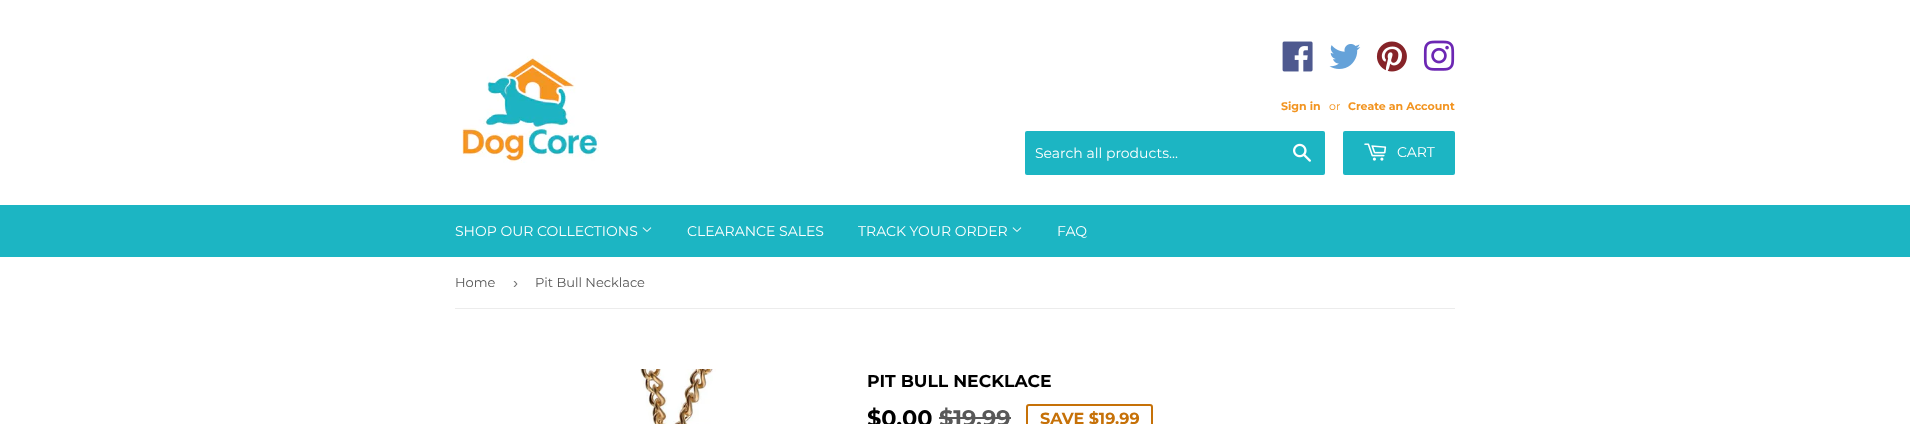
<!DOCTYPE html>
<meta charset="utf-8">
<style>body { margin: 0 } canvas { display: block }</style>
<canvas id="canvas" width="1910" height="424"></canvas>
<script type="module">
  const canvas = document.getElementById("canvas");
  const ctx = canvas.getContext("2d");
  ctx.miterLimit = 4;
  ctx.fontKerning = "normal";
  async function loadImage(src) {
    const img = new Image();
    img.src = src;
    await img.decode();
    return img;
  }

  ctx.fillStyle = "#ffffff";
  ctx.fillRect(0, 0, 1910, 424);
  ctx.drawImage(await loadImage("img1.png"), 462, 55, 137, 108);
  ctx.drawImage(await loadImage("img2.png"), 1282, 41, 31, 31);
  ctx.drawImage(await loadImage("img3.png"), 1329, 44, 32, 25);
  ctx.drawImage(await loadImage("img4.png"), 1376, 41, 31, 31);
  ctx.drawImage(await loadImage("img5.png"), 1423, 40, 32, 31);
  ctx.font = "bold 11px Montserrat";
  ctx.fillStyle = "#f29420";
  ctx.fillText("Sign in", 1281, 110);
  ctx.font = "11px Montserrat";
  ctx.fillText("or", 1329, 110);
  ctx.font = "bold 11px Montserrat";
  ctx.fillText("Create an Account", 1348, 110);
  ctx.fillStyle = "#1cb5c3";
  ctx.beginPath();
  ctx.roundRect(1025, 131, 300, 44, 2);
  ctx.fill();
  ctx.font = "14px Montserrat";
  ctx.fillStyle = "#ffffff";
  ctx.fillText("Search all products...", 1035, 158);
  ctx.drawImage(await loadImage("img6.png"), 1293, 143, 18, 19);
  ctx.fillStyle = "#1cb5c3";
  ctx.beginPath();
  ctx.roundRect(1343, 131, 112, 44, 2);
  ctx.fill();
  ctx.drawImage(await loadImage("img7.png"), 1364, 143, 23, 18);
  ctx.fillStyle = "#ffffff";
  ctx.fillText("CART", 1397, 157);
  ctx.fillStyle = "#1cb5c3";
  ctx.fillRect(0, 205, 1910, 52);
  ctx.fillStyle = "#ffffff";
  ctx.fillText("SHOP OUR COLLECTIONS", 455, 236);
  ctx.drawImage(await loadImage("img8.png"), 642, 227, 10, 5);
  ctx.fillText("CLEARANCE SALES", 687, 236);
  ctx.fillText("TRACK YOUR ORDER", 858, 236);
  ctx.drawImage(await loadImage("img8.png"), 1012, 227, 10, 5);
  ctx.fillText("FAQ", 1057, 236);
  ctx.fillStyle = "#ececec";
  ctx.fillRect(455, 308, 1000, 1);
  ctx.font = "13px Montserrat";
  ctx.fillStyle = "#585858";
  ctx.fillText("Home", 455, 287);
  ctx.font = "15px Liberation Sans";
  ctx.fillStyle = "#767676";
  ctx.fillText("›", 513, 288);
  ctx.font = "13px Montserrat";
  ctx.fillStyle = "#585858";
  ctx.fillText("Pit Bull Necklace", 535, 287);
  ctx.drawImage(await loadImage("img9.png"), 640, 369, 76, 55);
  ctx.font = "bold 17.25px Montserrat";
  ctx.fillStyle = "#000000";
  ctx.fillText("PIT BULL NECKLACE", 867, 387);
  ctx.font = "bold 22.5px Montserrat";
  ctx.fillText("$0.00", 867, 426);
  ctx.fillStyle = "#585858";
  ctx.fillText("$19.99", 939, 426);
  ctx.fillRect(939, 417, 72, 2);
  ctx.beginPath();
  ctx.roundRect(1027, 405, 125, 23, 2);
  ctx.strokeStyle = "#c67108";
  ctx.lineWidth = 2;
  ctx.stroke();
  ctx.font = "bold 16px Montserrat";
  ctx.fillStyle = "#c67108";
  ctx.fillText("SAVE $19.99", 1040, 424);
</script>
